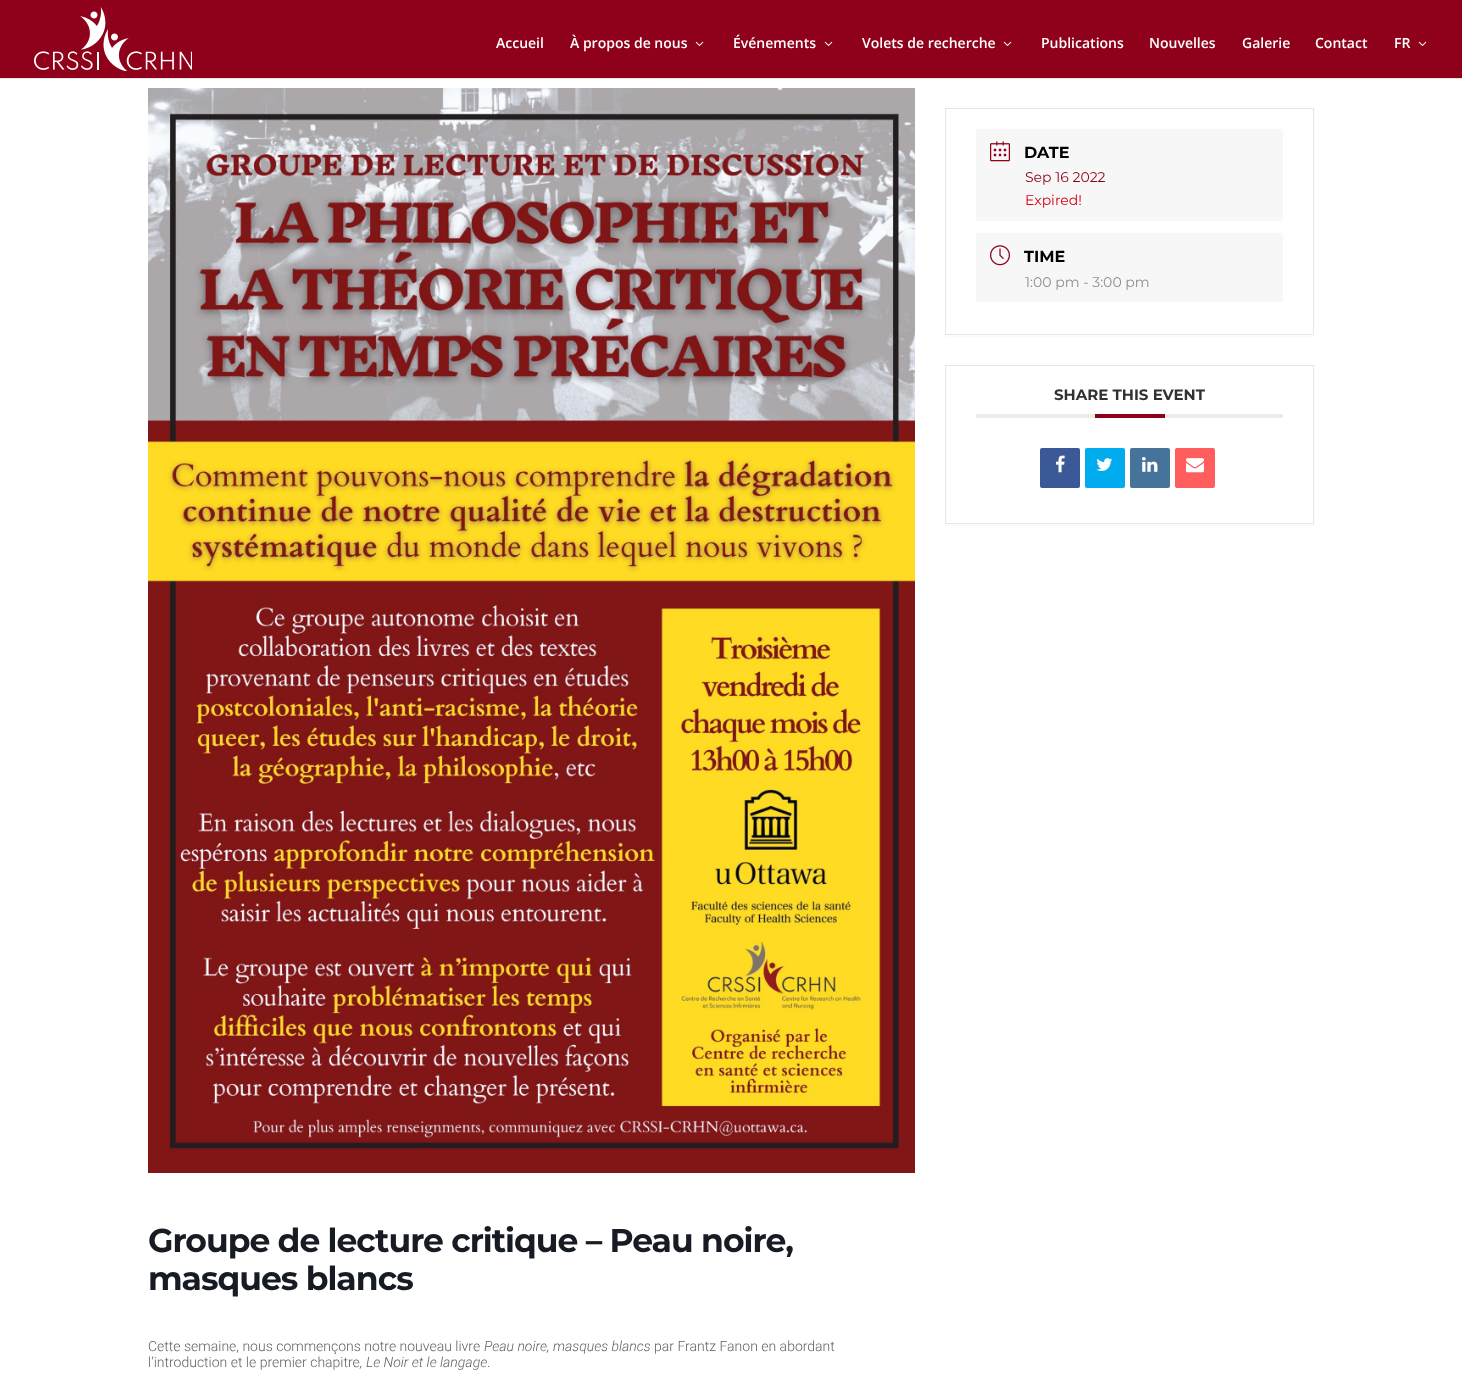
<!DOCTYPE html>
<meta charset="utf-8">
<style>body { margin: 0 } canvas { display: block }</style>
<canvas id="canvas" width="1462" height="1377"></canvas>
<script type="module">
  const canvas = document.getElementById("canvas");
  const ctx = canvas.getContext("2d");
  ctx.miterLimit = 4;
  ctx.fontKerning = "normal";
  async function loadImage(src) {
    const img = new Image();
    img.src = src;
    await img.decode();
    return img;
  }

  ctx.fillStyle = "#ffffff";
  ctx.fillRect(0, 0, 1462, 1377);
  ctx.fillStyle = "#e6e6e6";
  ctx.fillRect(0, 78, 1462, 1);
  ctx.fillStyle = "#8f001a";
  ctx.fillRect(0, 0, 1462, 78);
  ctx.drawImage(await loadImage("img1.png"), 34, 7, 158, 64);
  ctx.font = "600 14px Open Sans";
  ctx.fillStyle = "#ffffff";
  ctx.fillText("Accueil", 496, 48);
  ctx.fillText("À propos de nous", 570, 48);
  ctx.drawImage(await loadImage("img2.png"), 695, 41, 9, 5);
  ctx.fillText("Événements", 733, 48);
  ctx.drawImage(await loadImage("img2.png"), 824, 41, 9, 5);
  ctx.fillText("Volets de recherche", 862, 48);
  ctx.drawImage(await loadImage("img2.png"), 1003, 41, 9, 5);
  ctx.fillText("Publications", 1041, 48);
  ctx.fillText("Nouvelles", 1149, 48);
  ctx.fillText("Galerie", 1242, 48);
  ctx.fillText("Contact", 1315, 48);
  ctx.fillText("FR", 1394, 48);
  ctx.drawImage(await loadImage("img2.png"), 1418, 41, 9, 5);
  ctx.fillStyle = "#fbfbfb";
  ctx.fillRect(945, 335, 369, 2);
  ctx.strokeStyle = "#e6e6e6";
  ctx.strokeRect(945.5, 108.5, 368, 226);
  ctx.fillStyle = "#f7f7f7";
  ctx.fillRect(976, 129, 307, 92);
  ctx.drawImage(await loadImage("img3.png"), 990, 141, 20, 21);
  ctx.font = "bold 16px Montserrat";
  ctx.fillStyle = "#000000";
  ctx.fillText("DATE", 1024, 158);
  ctx.font = "14px Montserrat";
  ctx.fillStyle = "#8f001a";
  ctx.fillText("Sep 16 2022", 1025, 182);
  ctx.fillStyle = "#d8000c";
  ctx.fillText("Expired!", 1025, 205);
  ctx.fillStyle = "#f7f7f7";
  ctx.fillRect(976, 233, 307, 69);
  ctx.drawImage(await loadImage("img4.png"), 990, 245, 20, 21);
  ctx.font = "bold 16px Montserrat";
  ctx.fillStyle = "#000000";
  ctx.fillText("TIME", 1024, 262);
  ctx.font = "14px Montserrat";
  ctx.fillStyle = "#8d8d8d";
  ctx.fillText("1:00 pm - 3:00 pm", 1025, 287);
  ctx.fillStyle = "#fbfbfb";
  ctx.fillRect(945, 524, 369, 2);
  ctx.strokeRect(945.5, 365.5, 368, 158);
  ctx.fillStyle = "#ebebeb";
  ctx.fillRect(976, 414, 307, 4);
  ctx.font = "bold 15px Montserrat";
  ctx.fillStyle = "#313131";
  ctx.fillText("SHARE THIS EVENT", 1054, 400);
  ctx.fillStyle = "#8f001a";
  ctx.fillRect(1095, 414, 70, 4);
  ctx.fillStyle = "#3b5996";
  ctx.beginPath();
  ctx.roundRect(1040, 448, 40, 40, 2);
  ctx.fill();
  ctx.drawImage(await loadImage("img5.png"), 1055, 455, 10, 18);
  ctx.fillStyle = "#00acee";
  ctx.beginPath();
  ctx.roundRect(1085, 448, 40, 40, 2);
  ctx.fill();
  ctx.drawImage(await loadImage("img6.png"), 1096, 458, 17, 13);
  ctx.fillStyle = "#457399";
  ctx.beginPath();
  ctx.roundRect(1130, 448, 40, 40, 2);
  ctx.fill();
  ctx.drawImage(await loadImage("img7.png"), 1142, 457, 16, 15);
  ctx.fillStyle = "#ff5d5e";
  ctx.beginPath();
  ctx.roundRect(1175, 448, 40, 40, 2);
  ctx.fill();
  ctx.drawImage(await loadImage("img8.png"), 1186, 458, 18, 15);
  ctx.drawImage(await loadImage("img9.png"), 148, 88, 767, 1085);
  ctx.letterSpacing = "-1px";
  ctx.font = "bold 33px Montserrat";
  ctx.fillStyle = "#171c24";
  ctx.fillText("Groupe de lecture critique – Peau noire,", 148, 1252);
  ctx.fillText("masques blancs", 148, 1290);
  ctx.letterSpacing = "0px";
  ctx.font = "300 14px Roboto";
  ctx.fillStyle = "#616161";
  ctx.fillText("Cette semaine, nous commençons notre nouveau livre", 148, 1351);
  ctx.font = "italic 300 14px Roboto";
  ctx.fillText("Peau noire, masques blancs", 484, 1351);
  ctx.font = "300 14px Roboto";
  ctx.fillText("par Frantz Fanon en abordant", 654, 1351);
  ctx.fillText("l’introduction et le premier chapitre", 148, 1367);
  ctx.font = "italic 300 14px Roboto";
  ctx.fillText(", Le Noir et le langage", 360, 1367);
  ctx.font = "300 14px Roboto";
  ctx.fillText(".", 487, 1367);
</script>
